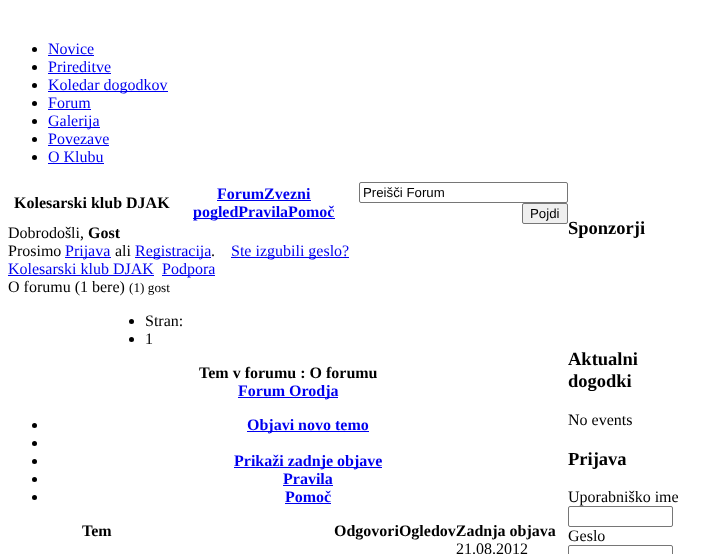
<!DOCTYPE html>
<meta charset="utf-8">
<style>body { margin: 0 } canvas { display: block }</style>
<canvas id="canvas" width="706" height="554"></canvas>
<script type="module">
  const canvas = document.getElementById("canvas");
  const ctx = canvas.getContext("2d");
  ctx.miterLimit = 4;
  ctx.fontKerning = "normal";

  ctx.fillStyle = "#ffffff";
  ctx.fillRect(0, 0, 706, 554);
  ctx.fillStyle = "#000000";
  ctx.beginPath();
  ctx.arc(34.5, 49.5, 2.5, 0, Math.PI * 2);
  ctx.fill();
  ctx.font = "16px Liberation Serif";
  ctx.fillStyle = "#0000ee";
  ctx.fillText("Novice", 48, 54);
  ctx.fillRect(48, 55, 46, 1);
  ctx.fillStyle = "#000000";
  ctx.beginPath();
  ctx.arc(34.5, 67.5, 2.5, 0, Math.PI * 2);
  ctx.fill();
  ctx.fillStyle = "#0000ee";
  ctx.fillText("Prireditve", 48, 72);
  ctx.fillRect(48, 73, 63, 1);
  ctx.fillStyle = "#000000";
  ctx.beginPath();
  ctx.arc(34.5, 85.5, 2.5, 0, Math.PI * 2);
  ctx.fill();
  ctx.fillStyle = "#0000ee";
  ctx.fillRect(48, 91, 120, 1);
  ctx.fillText("Koledar dogodkov", 48, 90);
  ctx.fillStyle = "#000000";
  ctx.beginPath();
  ctx.arc(34.5, 103.5, 2.5, 0, Math.PI * 2);
  ctx.fill();
  ctx.fillStyle = "#0000ee";
  ctx.fillText("Forum", 48, 108);
  ctx.fillRect(48, 109, 43, 1);
  ctx.fillStyle = "#000000";
  ctx.beginPath();
  ctx.arc(34.5, 121.5, 2.5, 0, Math.PI * 2);
  ctx.fill();
  ctx.fillStyle = "#0000ee";
  ctx.fillRect(48, 127, 52, 1);
  ctx.fillText("Galerija", 48, 126);
  ctx.fillStyle = "#000000";
  ctx.beginPath();
  ctx.arc(34.5, 139.5, 2.5, 0, Math.PI * 2);
  ctx.fill();
  ctx.fillStyle = "#0000ee";
  ctx.fillText("Povezave", 48, 144);
  ctx.fillRect(48, 145, 61, 1);
  ctx.fillStyle = "#000000";
  ctx.beginPath();
  ctx.arc(34.5, 157.5, 2.5, 0, Math.PI * 2);
  ctx.fill();
  ctx.fillStyle = "#0000ee";
  ctx.fillText("O Klubu", 48, 162);
  ctx.fillRect(48, 163, 56, 1);
  ctx.font = "bold 16px Liberation Serif";
  ctx.fillStyle = "#000000";
  ctx.fillText("Kolesarski klub DJAK", 14, 208);
  ctx.fillStyle = "#0000ee";
  ctx.fillText("ForumZvezni", 217, 199);
  ctx.fillRect(217, 200, 94, 1);
  ctx.fillRect(193, 218, 142, 1);
  ctx.fillText("pogledPravilaPomoč", 193, 217);
  ctx.beginPath();
  ctx.roundRect(359.5, 182.5, 208, 20, 1.5);
  ctx.strokeStyle = "#767676";
  ctx.stroke();
  ctx.font = "13.25px Liberation Sans";
  ctx.fillStyle = "#000000";
  ctx.fillText("Preišči Forum", 363, 197);
  ctx.fillStyle = "#efefef";
  ctx.beginPath();
  ctx.roundRect(522.5, 203.5, 45, 20, 1.5);
  ctx.fill();
  ctx.stroke();
  ctx.fillStyle = "#000000";
  ctx.fillText("Pojdi", 530, 218);
  ctx.font = "16px Liberation Serif";
  ctx.fillText("Dobrodošli,", 8, 238);
  ctx.font = "bold 16px Liberation Serif";
  ctx.fillText("Gost", 88, 238);
  ctx.font = "16px Liberation Serif";
  ctx.fillText("Prosimo", 8, 256);
  ctx.fillStyle = "#0000ee";
  ctx.fillRect(65, 257, 46, 1);
  ctx.fillText("Prijava", 65, 256);
  ctx.fillStyle = "#000000";
  ctx.fillText("ali", 115, 256);
  ctx.fillStyle = "#0000ee";
  ctx.fillRect(135, 257, 76, 1);
  ctx.fillText("Registracija", 135, 256);
  ctx.fillStyle = "#000000";
  ctx.fillText(".", 211, 256);
  ctx.fillStyle = "#0000ee";
  ctx.fillRect(231, 257, 118, 1);
  ctx.fillText("Ste izgubili geslo?", 231, 256);
  ctx.fillText("Kolesarski klub DJAK", 8, 274);
  ctx.fillRect(8, 275, 146, 1);
  ctx.fillRect(162, 275, 53, 1);
  ctx.fillText("Podpora", 162, 274);
  ctx.fillStyle = "#000000";
  ctx.fillText("O forumu (1 bere)", 8, 292);
  ctx.font = "13.25px Liberation Serif";
  ctx.fillText("(1) gost", 129, 292);
  ctx.beginPath();
  ctx.arc(131.5, 321.5, 2.5, 0, Math.PI * 2);
  ctx.fill();
  ctx.font = "16px Liberation Serif";
  ctx.fillText("Stran:", 145, 326);
  ctx.beginPath();
  ctx.arc(131.5, 339.5, 2.5, 0, Math.PI * 2);
  ctx.fill();
  ctx.fillText("1", 145, 344);
  ctx.font = "bold 16px Liberation Serif";
  ctx.fillText("Tem v forumu : O forumu", 199, 378);
  ctx.fillStyle = "#0000ee";
  ctx.fillRect(238, 397, 100, 1);
  ctx.fillText("Forum Orodja", 238, 396);
  ctx.fillStyle = "#000000";
  ctx.beginPath();
  ctx.arc(34.5, 425.5, 2.5, 0, Math.PI * 2);
  ctx.fill();
  ctx.fillStyle = "#0000ee";
  ctx.fillRect(247, 431, 122, 1);
  ctx.fillText("Objavi novo temo", 247, 430);
  ctx.fillStyle = "#000000";
  ctx.beginPath();
  ctx.arc(34.5, 443.5, 2.5, 0, Math.PI * 2);
  ctx.fill();
  ctx.beginPath();
  ctx.arc(34.5, 461.5, 2.5, 0, Math.PI * 2);
  ctx.fill();
  ctx.fillStyle = "#0000ee";
  ctx.fillRect(234, 467, 148, 1);
  ctx.fillText("Prikaži zadnje objave", 234, 466);
  ctx.fillStyle = "#000000";
  ctx.beginPath();
  ctx.arc(34.5, 479.5, 2.5, 0, Math.PI * 2);
  ctx.fill();
  ctx.fillStyle = "#0000ee";
  ctx.fillText("Pravila", 283, 484);
  ctx.fillRect(283, 485, 50, 1);
  ctx.fillStyle = "#000000";
  ctx.beginPath();
  ctx.arc(34.5, 497.5, 2.5, 0, Math.PI * 2);
  ctx.fill();
  ctx.fillStyle = "#0000ee";
  ctx.fillText("Pomoč", 285, 502);
  ctx.fillRect(285, 503, 46, 1);
  ctx.fillStyle = "#000000";
  ctx.fillText("Tem", 82, 536);
  ctx.fillText("OdgovoriOgledovZadnja objava", 334, 536);
  ctx.font = "16px Liberation Serif";
  ctx.fillText("21.08.2012", 456, 554);
  ctx.font = "bold 18.5px Liberation Serif";
  ctx.fillText("Sponzorji", 568, 234);
  ctx.fillText("Aktualni", 568, 365);
  ctx.fillText("dogodki", 568, 387);
  ctx.font = "16px Liberation Serif";
  ctx.fillText("No events", 568, 425);
  ctx.font = "bold 18.5px Liberation Serif";
  ctx.fillText("Prijava", 568, 465);
  ctx.font = "16px Liberation Serif";
  ctx.fillText("Uporabniško ime", 568, 502);
  ctx.beginPath();
  ctx.roundRect(568.5, 506.5, 104, 20, 1.5);
  ctx.stroke();
  ctx.fillText("Geslo", 568, 541);
  ctx.beginPath();
  ctx.roundRect(568.5, 545.5, 104, 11, 1.5);
  ctx.stroke();
</script>
